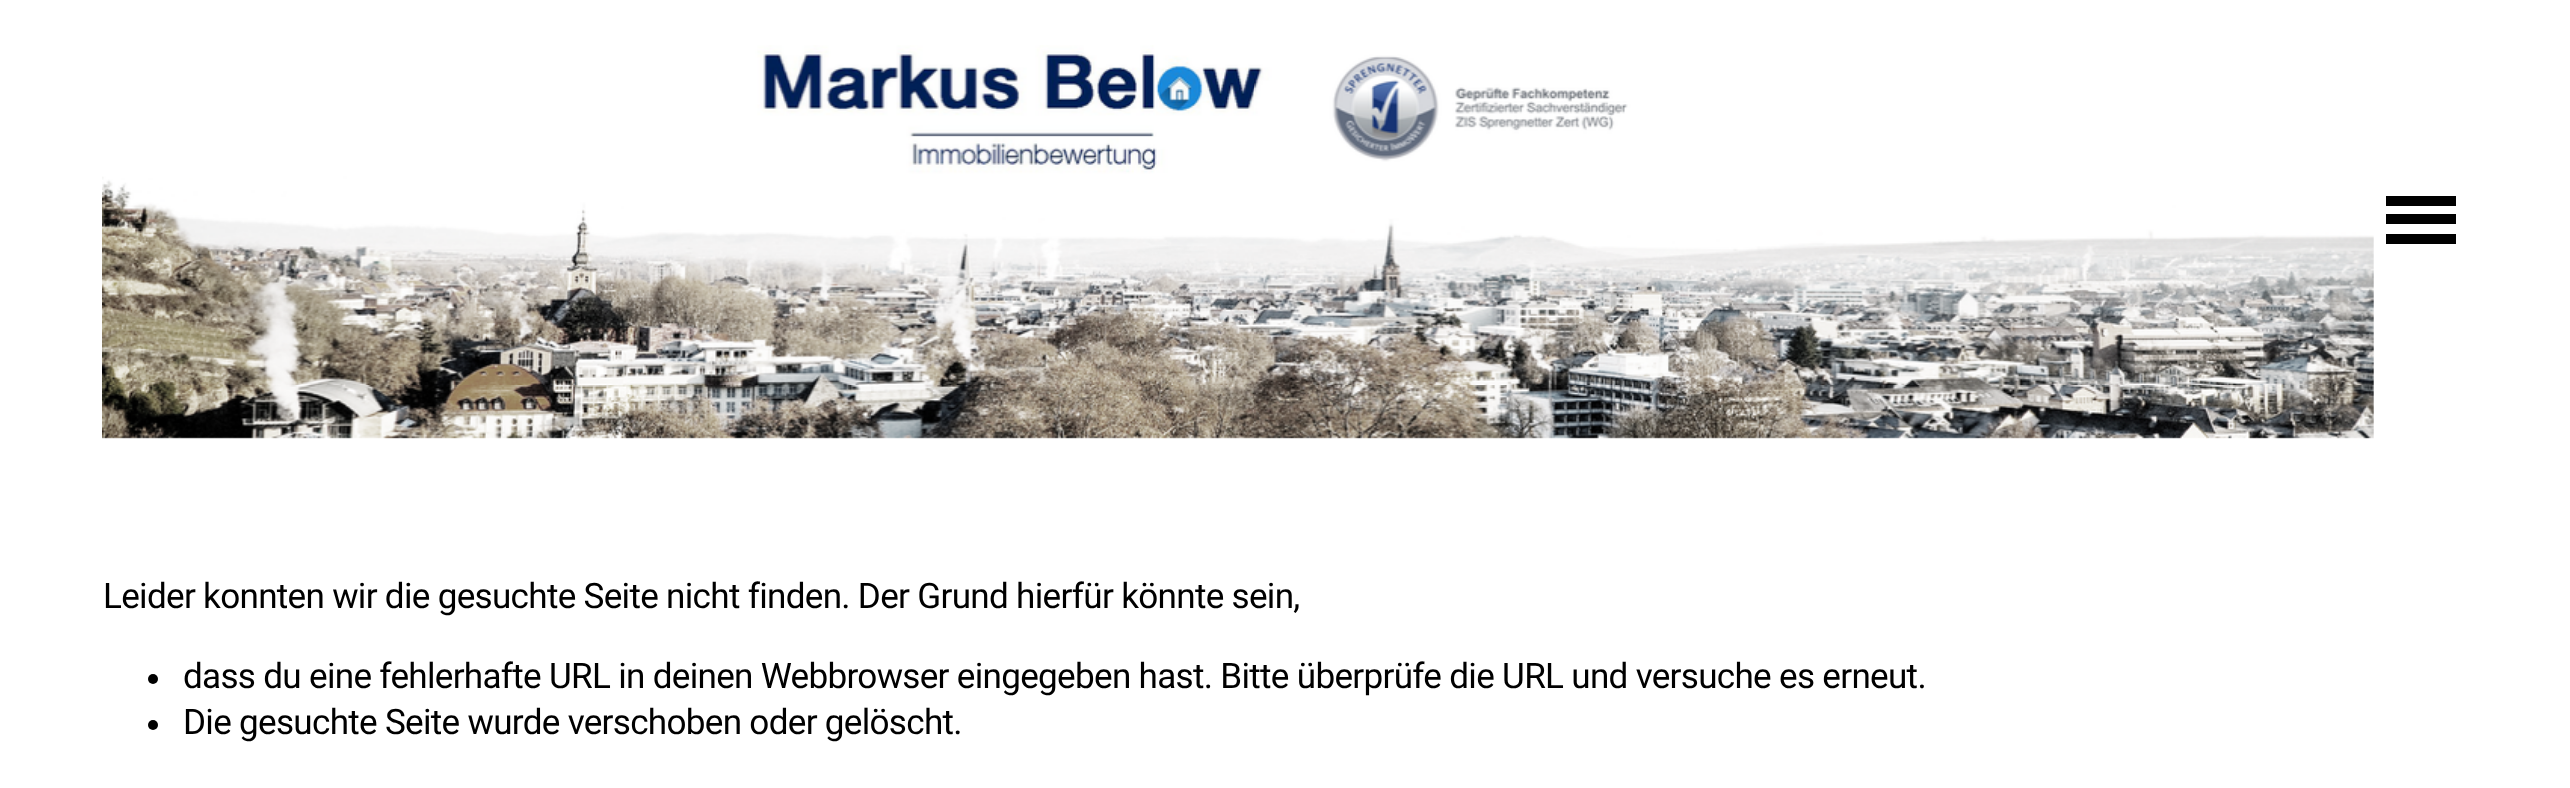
<!DOCTYPE html>
<meta charset="utf-8">
<style>body { margin: 0 } canvas { display: block }</style>
<canvas id="canvas" width="2570" height="788"></canvas>
<script type="module">
  const canvas = document.getElementById("canvas");
  const ctx = canvas.getContext("2d");
  ctx.miterLimit = 4;
  ctx.fontKerning = "normal";
  async function loadImage(src) {
    const img = new Image();
    img.src = src;
    await img.decode();
    return img;
  }

  ctx.fillStyle = "#ffffff";
  ctx.fillRect(0, 0, 2570, 788);
  ctx.drawImage(await loadImage("img1.png"), 102, 45, 2272, 394);
  ctx.fillStyle = "#000000";
  ctx.fillRect(2386, 196, 70, 10);
  ctx.fillRect(2386, 214, 70, 10);
  ctx.fillRect(2386, 234, 70, 10);
  ctx.letterSpacing = "-0.7px";
  ctx.font = "35.1px Roboto";
  ctx.fillText("Leider konnten wir die gesuchte Seite nicht finden. Der Grund hierfür könnte sein,", 103, 608);
  ctx.beginPath();
  ctx.arc(153, 679, 5, 0, Math.PI * 2);
  ctx.fill();
  ctx.fillText("dass du eine fehlerhafte URL in deinen Webbrowser eingegeben hast. Bitte überprüfe die URL und versuche es erneut.", 183, 688);
  ctx.beginPath();
  ctx.arc(153, 725, 5, 0, Math.PI * 2);
  ctx.fill();
  ctx.fillText("Die gesuchte Seite wurde verschoben oder gelöscht.", 183, 734);
</script>
